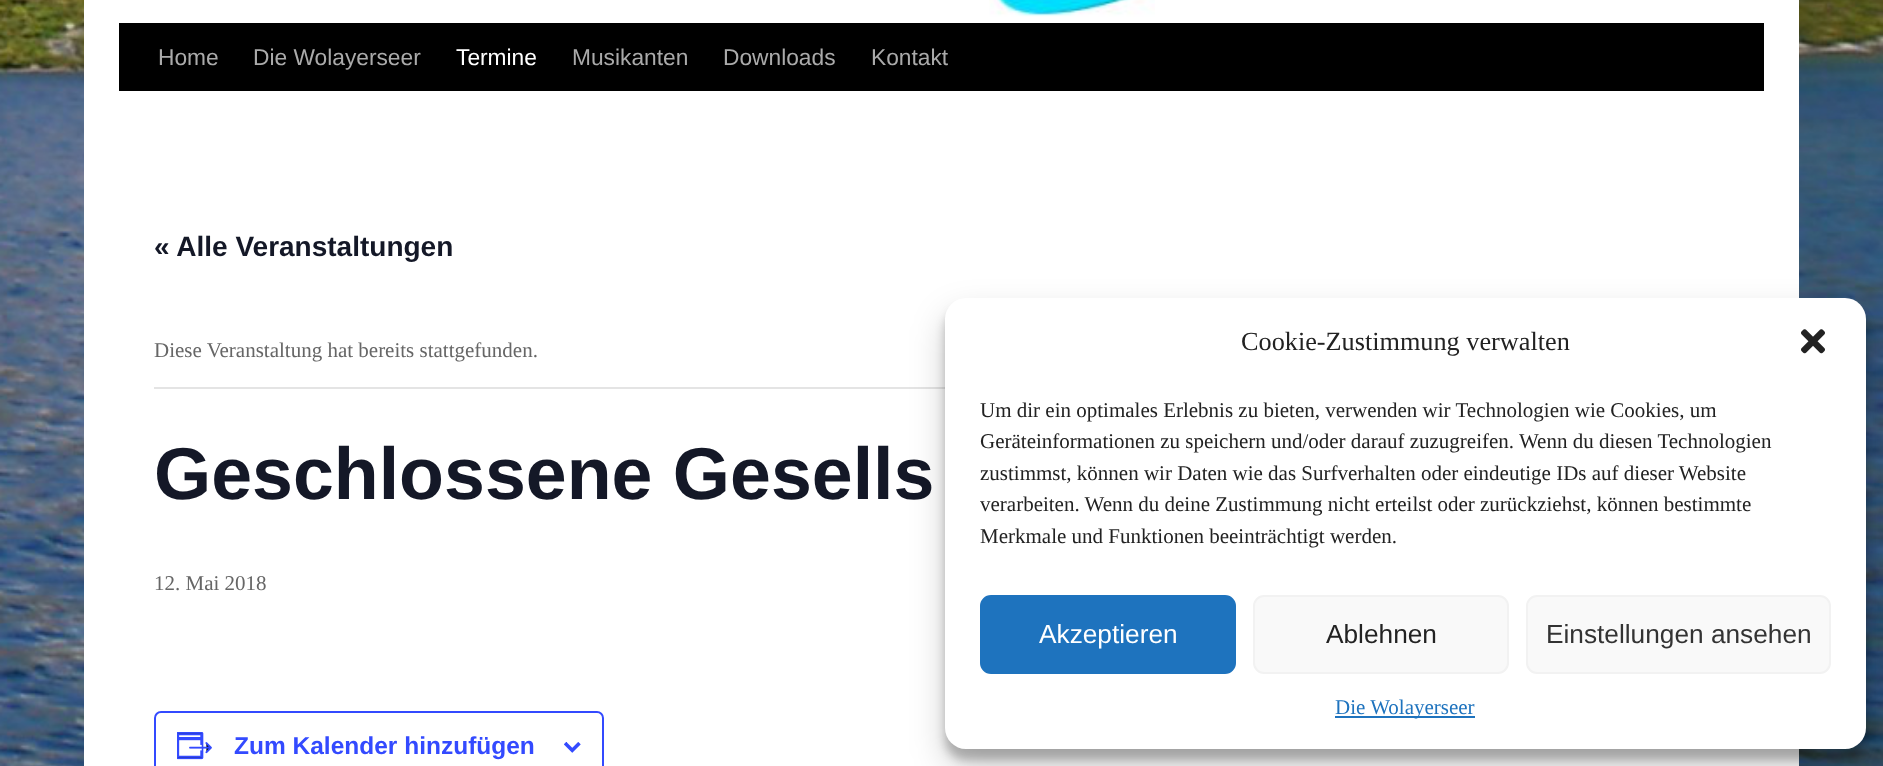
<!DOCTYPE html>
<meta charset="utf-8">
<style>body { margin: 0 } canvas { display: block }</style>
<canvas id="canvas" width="1883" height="766"></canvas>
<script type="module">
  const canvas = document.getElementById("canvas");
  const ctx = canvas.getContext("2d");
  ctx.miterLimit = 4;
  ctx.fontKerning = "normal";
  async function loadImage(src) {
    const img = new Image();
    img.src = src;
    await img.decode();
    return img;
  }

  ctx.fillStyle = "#ffffff";
  ctx.fillRect(0, 0, 1883, 766);
  ctx.drawImage(await loadImage("img1.png"), 0, 0, 1883, 766);
  ctx.fillRect(84, 0, 1715, 766);
  ctx.fillStyle = "#000000";
  ctx.fillRect(119, 23, 1645, 68);
  ctx.drawImage(await loadImage("img2.png"), 989, 0, 166, 17);
  ctx.font = "22.75px Liberation Sans";
  ctx.fillStyle = "#aaaaaa";
  ctx.fillText("Home", 158, 65);
  ctx.fillText("Die Wolayerseer", 253, 65);
  ctx.fillStyle = "#ffffff";
  ctx.fillText("Termine", 456, 65);
  ctx.fillStyle = "#aaaaaa";
  ctx.fillText("Musikanten", 572, 65);
  ctx.fillText("Downloads", 723, 65);
  ctx.fillText("Kontakt", 871, 65);
  ctx.font = "bold 28px Liberation Sans";
  ctx.fillStyle = "#141827";
  ctx.fillText("« Alle Veranstaltungen", 154, 256);
  ctx.fillStyle = "#e4e4e4";
  ctx.fillRect(154, 387, 791, 2);
  ctx.font = "21px Liberation Serif";
  ctx.fillStyle = "#666666";
  ctx.fillText("Diese Veranstaltung hat bereits stattgefunden.", 154, 357);
  ctx.font = "bold 73.5px Liberation Sans";
  ctx.fillStyle = "#141827";
  ctx.fillText("Geschlossene Gesells", 154, 499);
  ctx.font = "21px Liberation Serif";
  ctx.fillStyle = "#666666";
  ctx.fillText("12. Mai 2018", 154, 590);
  ctx.beginPath();
  ctx.roundRect(155, 712, 448, 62, 6);
  ctx.strokeStyle = "#334aff";
  ctx.lineWidth = 2;
  ctx.stroke();
  ctx.drawImage(await loadImage("img3.png"), 177, 732, 35, 28);
  ctx.font = "bold 24.5px Liberation Sans";
  ctx.fillStyle = "#334aff";
  ctx.fillText("Zum Kalender hinzufügen", 234, 754);
  ctx.drawImage(await loadImage("img4.png"), 564, 742, 17, 11);
  ctx.fillStyle = "rgba(0, 0, 0, 0.23)";
  ctx.filter = "blur(5px)";
  ctx.beginPath();
  ctx.roundRect(945, 308, 921, 452, 21);
  ctx.fill();
  ctx.filter = "none";
  ctx.fillStyle = "rgba(0, 0, 0, 0.19)";
  ctx.filter = "blur(17.5px)";
  ctx.beginPath();
  ctx.roundRect(945, 315, 921, 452, 21);
  ctx.fill();
  ctx.filter = "none";
  ctx.fillStyle = "#ffffff";
  ctx.beginPath();
  ctx.roundRect(945, 298, 921, 451, 21);
  ctx.fill();
  ctx.font = "26.25px Liberation Serif";
  ctx.fillStyle = "#222222";
  ctx.fillText("Cookie-Zustimmung verwalten", 1241, 350);
  ctx.drawImage(await loadImage("img5.png"), 1801, 329, 24, 25);
  ctx.font = "21px Liberation Serif";
  ctx.fillText("Um dir ein optimales Erlebnis zu bieten, verwenden wir Technologien wie Cookies, um", 980, 417);
  ctx.fillText("Geräteinformationen zu speichern und/oder darauf zuzugreifen. Wenn du diesen Technologien", 980, 448);
  ctx.fillText("zustimmst, können wir Daten wie das Surfverhalten oder eindeutige IDs auf dieser Website", 980, 480);
  ctx.fillText("verarbeiten. Wenn du deine Zustimmung nicht erteilst oder zurückziehst, können bestimmte", 980, 511);
  ctx.fillText("Merkmale und Funktionen beeinträchtigt werden.", 980, 543);
  ctx.fillStyle = "#1e73be";
  ctx.beginPath();
  ctx.roundRect(981, 596, 254, 77, 10);
  ctx.fill();
  ctx.strokeStyle = "#1e73be";
  ctx.stroke();
  ctx.font = "26.25px Liberation Sans";
  ctx.fillStyle = "#ffffff";
  ctx.fillText("Akzeptieren", 1039, 643);
  ctx.fillStyle = "#f9f9f9";
  ctx.beginPath();
  ctx.roundRect(1254, 596, 254, 77, 10);
  ctx.fill();
  ctx.strokeStyle = "#f2f2f2";
  ctx.stroke();
  ctx.fillStyle = "#222222";
  ctx.fillText("Ablehnen", 1326, 643);
  ctx.fillStyle = "#f9f9f9";
  ctx.beginPath();
  ctx.roundRect(1527, 596, 303, 77, 10);
  ctx.fill();
  ctx.stroke();
  ctx.fillStyle = "#333333";
  ctx.fillText("Einstellungen ansehen", 1546, 643);
  ctx.fillStyle = "#1e73be";
  ctx.fillRect(1335, 716, 140, 2);
  ctx.font = "21px Liberation Serif";
  ctx.fillText("Die Wolayerseer", 1335, 714);
</script>
